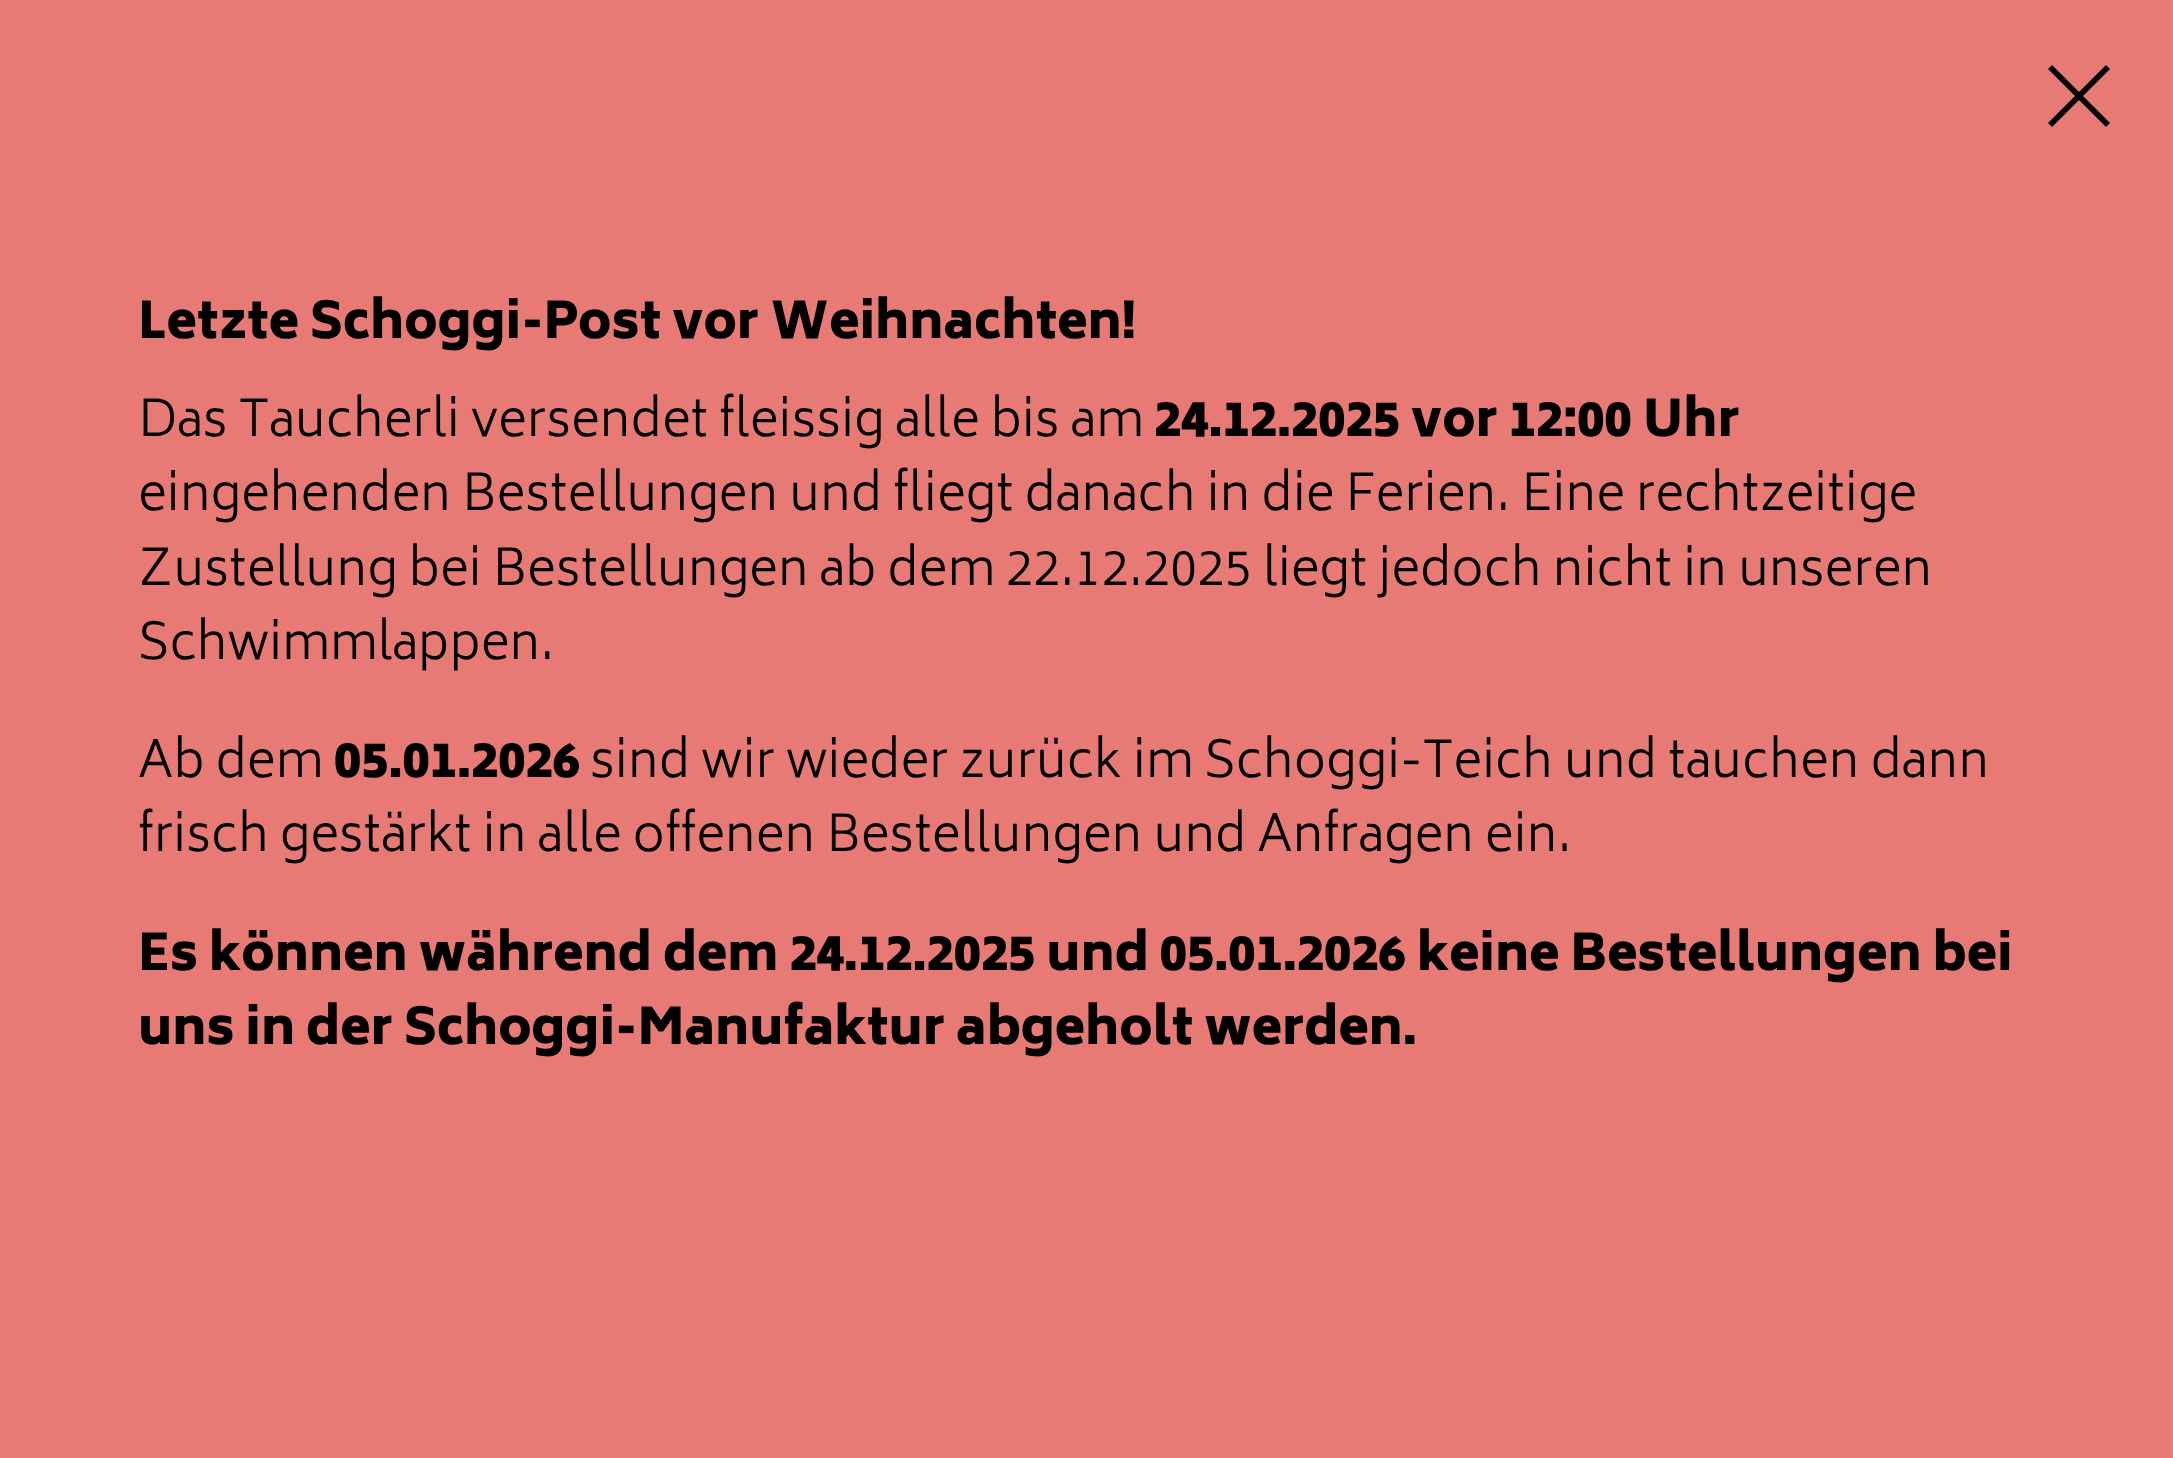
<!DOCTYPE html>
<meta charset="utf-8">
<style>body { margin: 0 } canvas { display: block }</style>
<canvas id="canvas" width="2173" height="1458"></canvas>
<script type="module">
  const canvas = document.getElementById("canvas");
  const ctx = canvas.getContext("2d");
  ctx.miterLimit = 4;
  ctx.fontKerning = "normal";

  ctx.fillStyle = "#e87a76";
  ctx.fillRect(0, 0, 2173, 1458);
  ctx.fillStyle = "#000000";
  ctx.beginPath();
  ctx.moveTo(2052, 65);
  ctx.lineTo(2110, 123);
  ctx.lineTo(2106, 127);
  ctx.lineTo(2048, 69);
  ctx.closePath();
  ctx.fill();
  ctx.beginPath();
  ctx.moveTo(2048, 123);
  ctx.lineTo(2106, 65);
  ctx.lineTo(2110, 69);
  ctx.lineTo(2052, 127);
  ctx.closePath();
  ctx.fill();
  ctx.font = "900 49.5px Biryani";
  ctx.fillText("Letzte Schoggi-Post vor Weihnachten!", 138, 338);
  ctx.font = "300 49.5px Biryani";
  ctx.fillText("Das Taucherli versendet fleissig alle bis am", 138, 436);
  ctx.font = "900 49.5px Biryani";
  ctx.fillText("24.12.2025 vor 12:00 Uhr", 1154, 436);
  ctx.font = "300 49.5px Biryani";
  ctx.fillText("eingehenden Bestellungen und fliegt danach in die Ferien. Eine rechtzeitige", 138, 510);
  ctx.fillText("Zustellung bei Bestellungen ab dem 22.12.2025 liegt jedoch nicht in unseren", 138, 585);
  ctx.fillText("Schwimmlappen.", 138, 659);
  ctx.fillText("Ab dem", 138, 777);
  ctx.font = "900 49.5px Biryani";
  ctx.fillText("05.01.2026", 334, 777);
  ctx.font = "300 49.5px Biryani";
  ctx.fillText("sind wir wieder zurück im Schoggi-Teich und tauchen dann", 590, 777);
  ctx.fillText("frisch gestärkt in alle offenen Bestellungen und Anfragen ein.", 138, 851);
  ctx.font = "900 49.5px Biryani";
  ctx.fillText("Es können während dem 24.12.2025 und 05.01.2026 keine Bestellungen bei", 138, 970);
  ctx.fillText("uns in der Schoggi-Manufaktur abgeholt werden.", 138, 1044);
</script>
